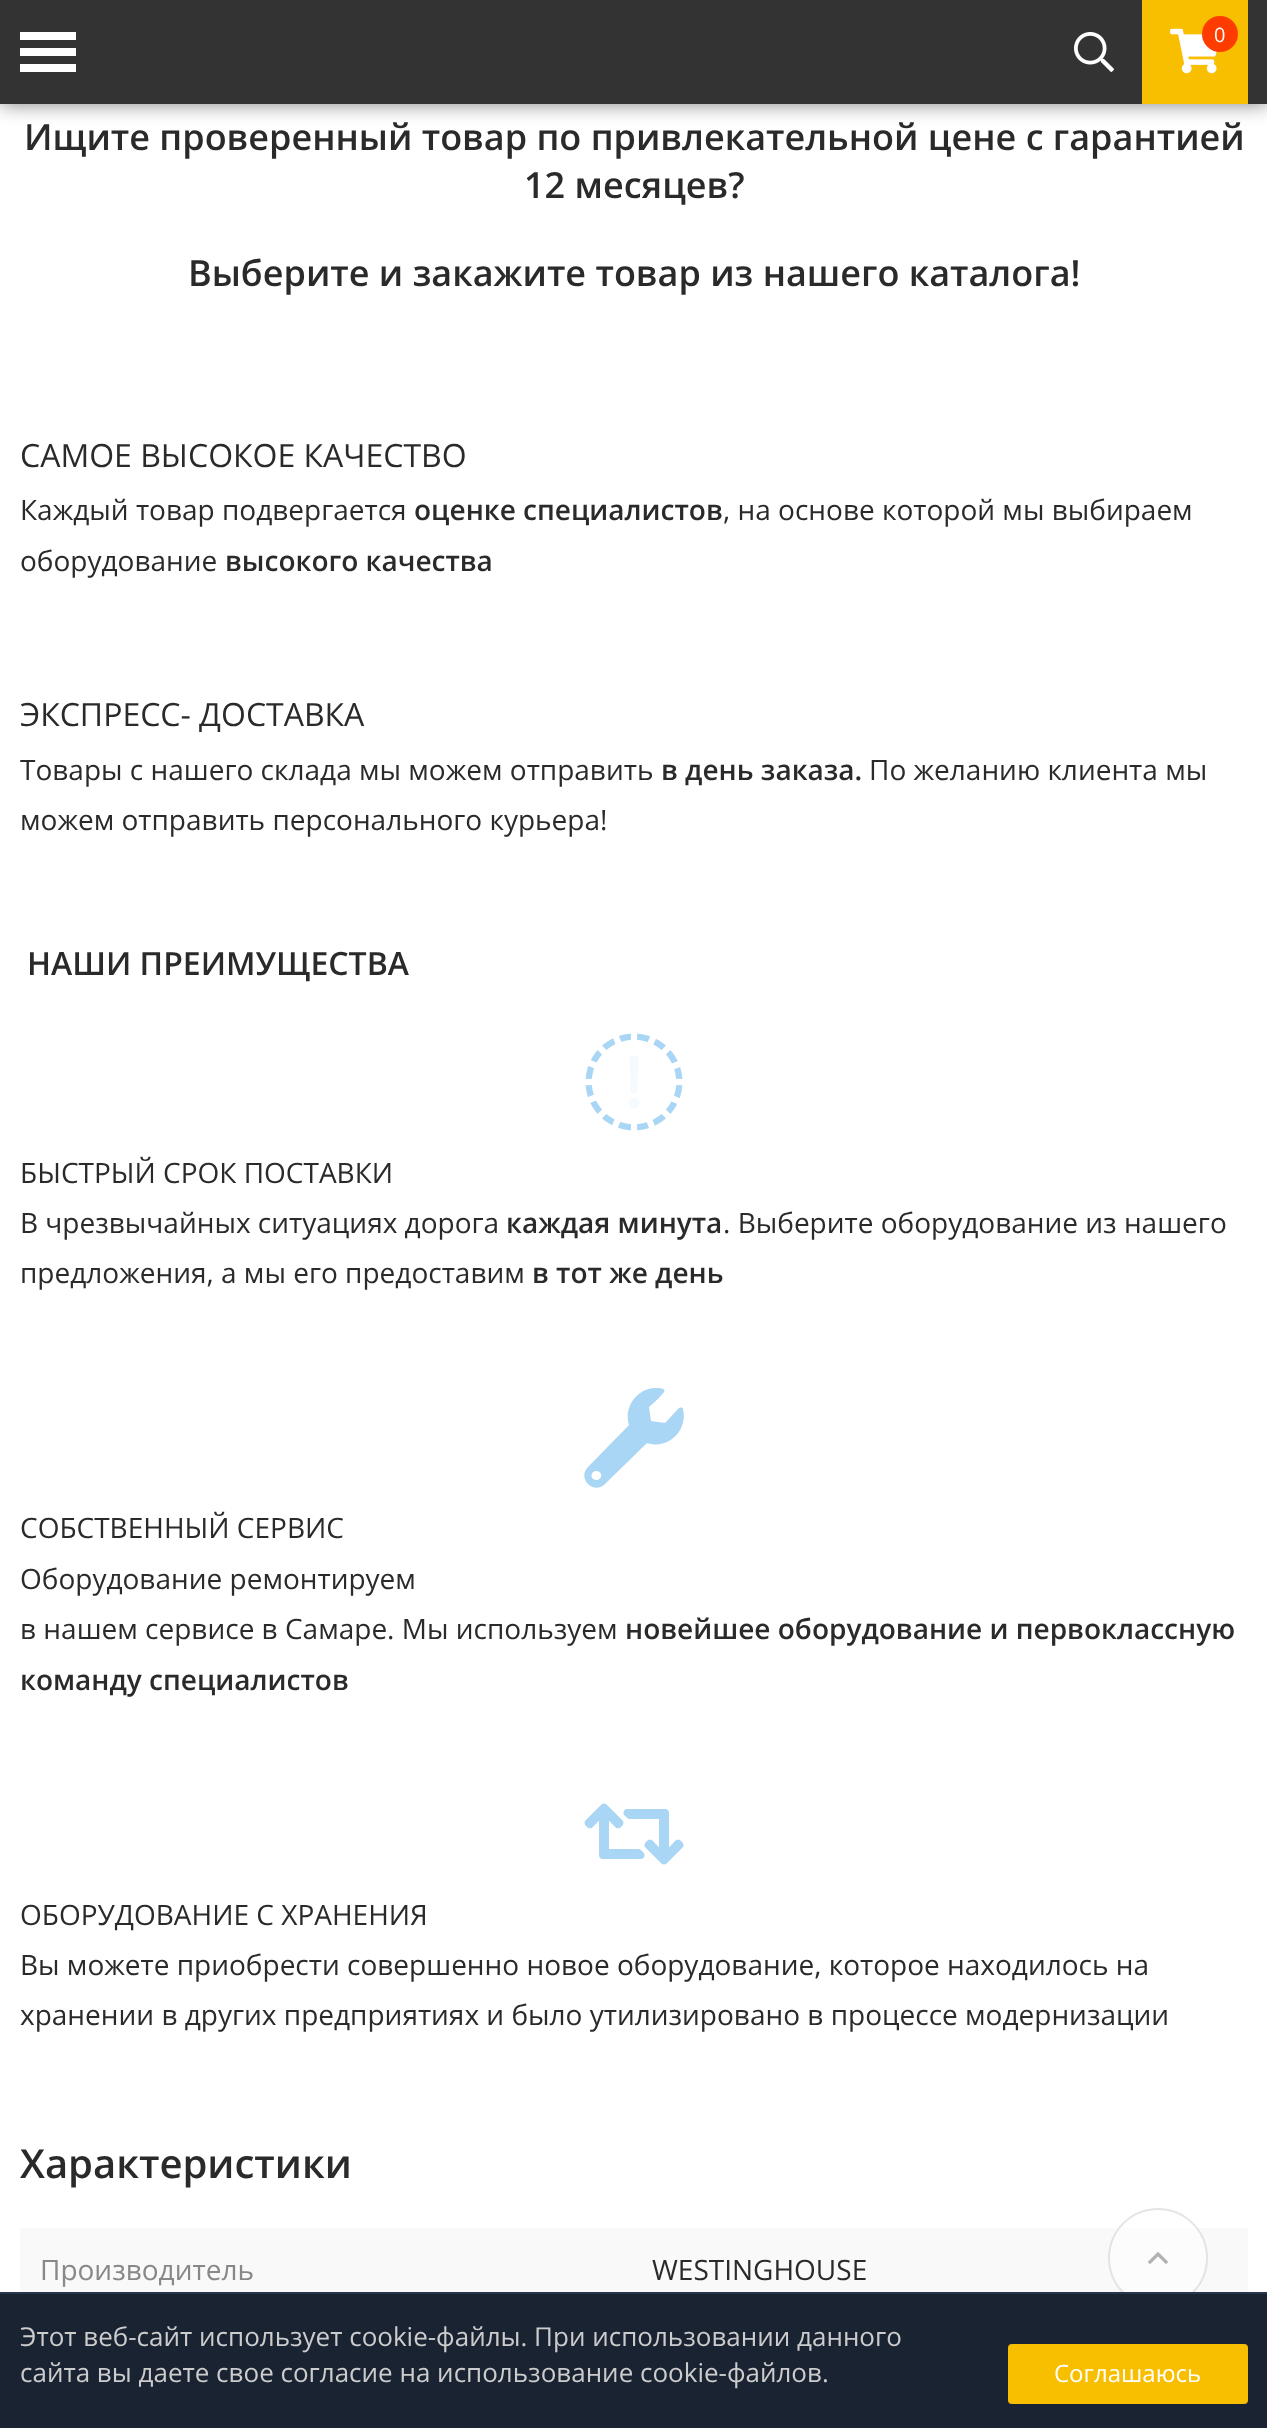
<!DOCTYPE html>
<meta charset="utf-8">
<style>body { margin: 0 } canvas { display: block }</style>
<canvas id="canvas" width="1267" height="2428"></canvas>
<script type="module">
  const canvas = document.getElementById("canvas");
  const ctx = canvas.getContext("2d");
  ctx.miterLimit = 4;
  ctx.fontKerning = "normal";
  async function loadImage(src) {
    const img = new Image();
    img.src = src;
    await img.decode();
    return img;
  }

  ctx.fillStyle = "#ffffff";
  ctx.fillRect(0, 0, 1267, 2428);
  ctx.fillStyle = "rgba(0, 0, 0, 0.5)";
  ctx.filter = "blur(10px)";
  ctx.beginPath();
  ctx.rect(0, 0, 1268, 104);
  ctx.fill();
  ctx.filter = "none";
  ctx.fillStyle = "#333333";
  ctx.fillRect(0, 0, 1267, 104);
  ctx.fillStyle = "#ffffff";
  ctx.fillRect(20, 48, 56, 8);
  ctx.fillRect(20, 32, 56, 8);
  ctx.fillRect(20, 64, 56, 8);
  ctx.drawImage(await loadImage("img1.png"), 1074, 32, 40, 40);
  ctx.fillStyle = "#f8bf00";
  ctx.fillRect(1142, 0, 106, 104);
  ctx.drawImage(await loadImage("img2.png"), 1170, 28, 47, 46);
  ctx.fillStyle = "#ff3c00";
  ctx.beginPath();
  ctx.arc(1220, 34, 18, 0, Math.PI * 2);
  ctx.fill();
  ctx.font = "20px Open Sans";
  ctx.fillStyle = "#ffffff";
  ctx.fillText("0", 1214, 42);
  ctx.font = "600 36px Open Sans";
  ctx.fillStyle = "#2a2a2a";
  ctx.fillText("Ищите проверенный товар по привлекательной цене с гарантией", 24, 150);
  ctx.fillText("12 месяцев?", 524, 198);
  ctx.fillText("Выберите и закажите товар из нашего каталога!", 188, 286);
  ctx.font = "32px Open Sans";
  ctx.fillText("САМОЕ ВЫСОКОЕ КАЧЕСТВО", 20, 467);
  ctx.font = "28px Open Sans";
  ctx.fillText("Каждый товар подвергается", 20, 520);
  ctx.font = "600 28px Open Sans";
  ctx.fillText("оценке специалистов", 414, 520);
  ctx.font = "28px Open Sans";
  ctx.fillText(", на основе которой мы выбираем", 723, 520);
  ctx.fillText("оборудование", 20, 571);
  ctx.font = "600 28px Open Sans";
  ctx.fillText("высокого качества", 225, 571);
  ctx.font = "32px Open Sans";
  ctx.fillText("ЭКСПРЕСС- ДОСТАВКА", 20, 726);
  ctx.font = "28px Open Sans";
  ctx.fillText("Товары с нашего склада мы можем отправить", 20, 780);
  ctx.font = "600 28px Open Sans";
  ctx.fillText("в день заказа.", 661, 780);
  ctx.font = "28px Open Sans";
  ctx.fillText("По желанию клиента мы", 869, 780);
  ctx.fillText("можем отправить персонального курьера!", 20, 830);
  ctx.font = "600 32px Open Sans";
  ctx.fillText("НАШИ ПРЕИМУЩЕСТВА", 27, 975);
  ctx.drawImage(await loadImage("img3.png"), 585, 1033, 98, 98);
  ctx.font = "28px Open Sans";
  ctx.fillText("БЫСТРЫЙ СРОК ПОСТАВКИ", 20, 1183);
  ctx.fillText("В чрезвычайных ситуациях дорога", 20, 1233);
  ctx.font = "600 28px Open Sans";
  ctx.fillText("каждая минута", 506, 1233);
  ctx.font = "28px Open Sans";
  ctx.fillText(". Выберите оборудование из нашего", 723, 1233);
  ctx.fillText("предложения, а мы его предоставим", 20, 1283);
  ctx.font = "600 28px Open Sans";
  ctx.fillText("в тот же день", 532, 1283);
  ctx.save();
  ctx.beginPath();
  ctx.rect(584, 1388, 100, 100);
  ctx.clip();
  ctx.fillStyle = "#a8d6f4";
  ctx.beginPath();
  ctx.moveTo(683, 1409);
  ctx.bezierCurveTo(683, 1408, 681, 1407, 679, 1408);
  ctx.lineTo(665, 1423);
  ctx.lineTo(651, 1421);
  ctx.lineTo(649, 1407);
  ctx.lineTo(659, 1398);
  ctx.bezierCurveTo(663, 1393, 669, 1389, 659, 1388);
  ctx.bezierCurveTo(639, 1386, 623, 1406, 629, 1425);
  ctx.lineTo(588, 1467);
  ctx.bezierCurveTo(583, 1472, 583, 1479, 588, 1484);
  ctx.bezierCurveTo(593, 1489, 600, 1489, 605, 1484);
  ctx.lineTo(647, 1443);
  ctx.bezierCurveTo(668, 1450, 688, 1431, 683, 1409);
  ctx.closePath();
  ctx.moveTo(596, 1480);
  ctx.bezierCurveTo(590, 1480, 590, 1471, 596, 1471);
  ctx.bezierCurveTo(603, 1471, 603, 1480, 596, 1480);
  ctx.closePath();
  ctx.fill();
  ctx.restore();
  ctx.font = "28px Open Sans";
  ctx.fillText("СОБСТВЕННЫЙ СЕРВИС", 20, 1538);
  ctx.fillText("Оборудование ремонтируем", 20, 1589);
  ctx.fillText("в нашем сервисе в Самаре. Мы используем", 20, 1639);
  ctx.font = "600 28px Open Sans";
  ctx.fillText("новейшее оборудование и первоклассную", 625, 1639);
  ctx.fillText("команду специалистов", 20, 1690);
  ctx.drawImage(await loadImage("img4.png"), 584, 1803, 100, 62);
  ctx.font = "28px Open Sans";
  ctx.fillText("ОБОРУДОВАНИЕ С ХРАНЕНИЯ", 20, 1925);
  ctx.fillText("Вы можете приобрести совершенно новое оборудование, которое находилось на", 20, 1975);
  ctx.fillText("хранении в других предприятиях и было утилизировано в процессе модернизации", 20, 2025);
  ctx.font = "600 40px Open Sans";
  ctx.fillText("Характеристики", 20, 2178);
  ctx.fillStyle = "#f9f9f9";
  ctx.fillRect(20, 2228, 1228, 64);
  ctx.font = "28px Open Sans";
  ctx.fillStyle = "#888888";
  ctx.fillText("Производитель", 40, 2280);
  ctx.fillStyle = "#2a2a2a";
  ctx.fillText("WESTINGHOUSE", 652, 2280);
  ctx.fillStyle = "rgba(255, 255, 255, 0.5)";
  ctx.beginPath();
  ctx.arc(1158, 2258, 50, 0, Math.PI * 2);
  ctx.fill();
  ctx.beginPath();
  ctx.arc(1158, 2258, 49, 0, Math.PI * 2);
  ctx.strokeStyle = "rgba(204, 204, 204, 0.5)";
  ctx.lineWidth = 2;
  ctx.stroke();
  ctx.drawImage(await loadImage("img5.png"), 1148, 2252, 20, 12);
  ctx.fillStyle = "#1a2332";
  ctx.fillRect(0, 2294, 1267, 134);
  ctx.fillStyle = "#28364d";
  ctx.fillRect(0, 2292, 1267, 2);
  ctx.font = "26px Open Sans";
  ctx.fillStyle = "#cccccc";
  ctx.fillText("Этот веб-сайт использует cookie-файлы. При использовании данного", 20, 2346);
  ctx.fillText("сайта вы даете свое согласие на использование cookie-файлов.", 20, 2382);
  ctx.fillStyle = "#f8bf00";
  ctx.beginPath();
  ctx.roundRect(1008, 2344, 240, 60, 4);
  ctx.fill();
  ctx.font = "24px Open Sans";
  ctx.fillStyle = "#ffffff";
  ctx.fillText("Соглашаюсь", 1054, 2382);
</script>
